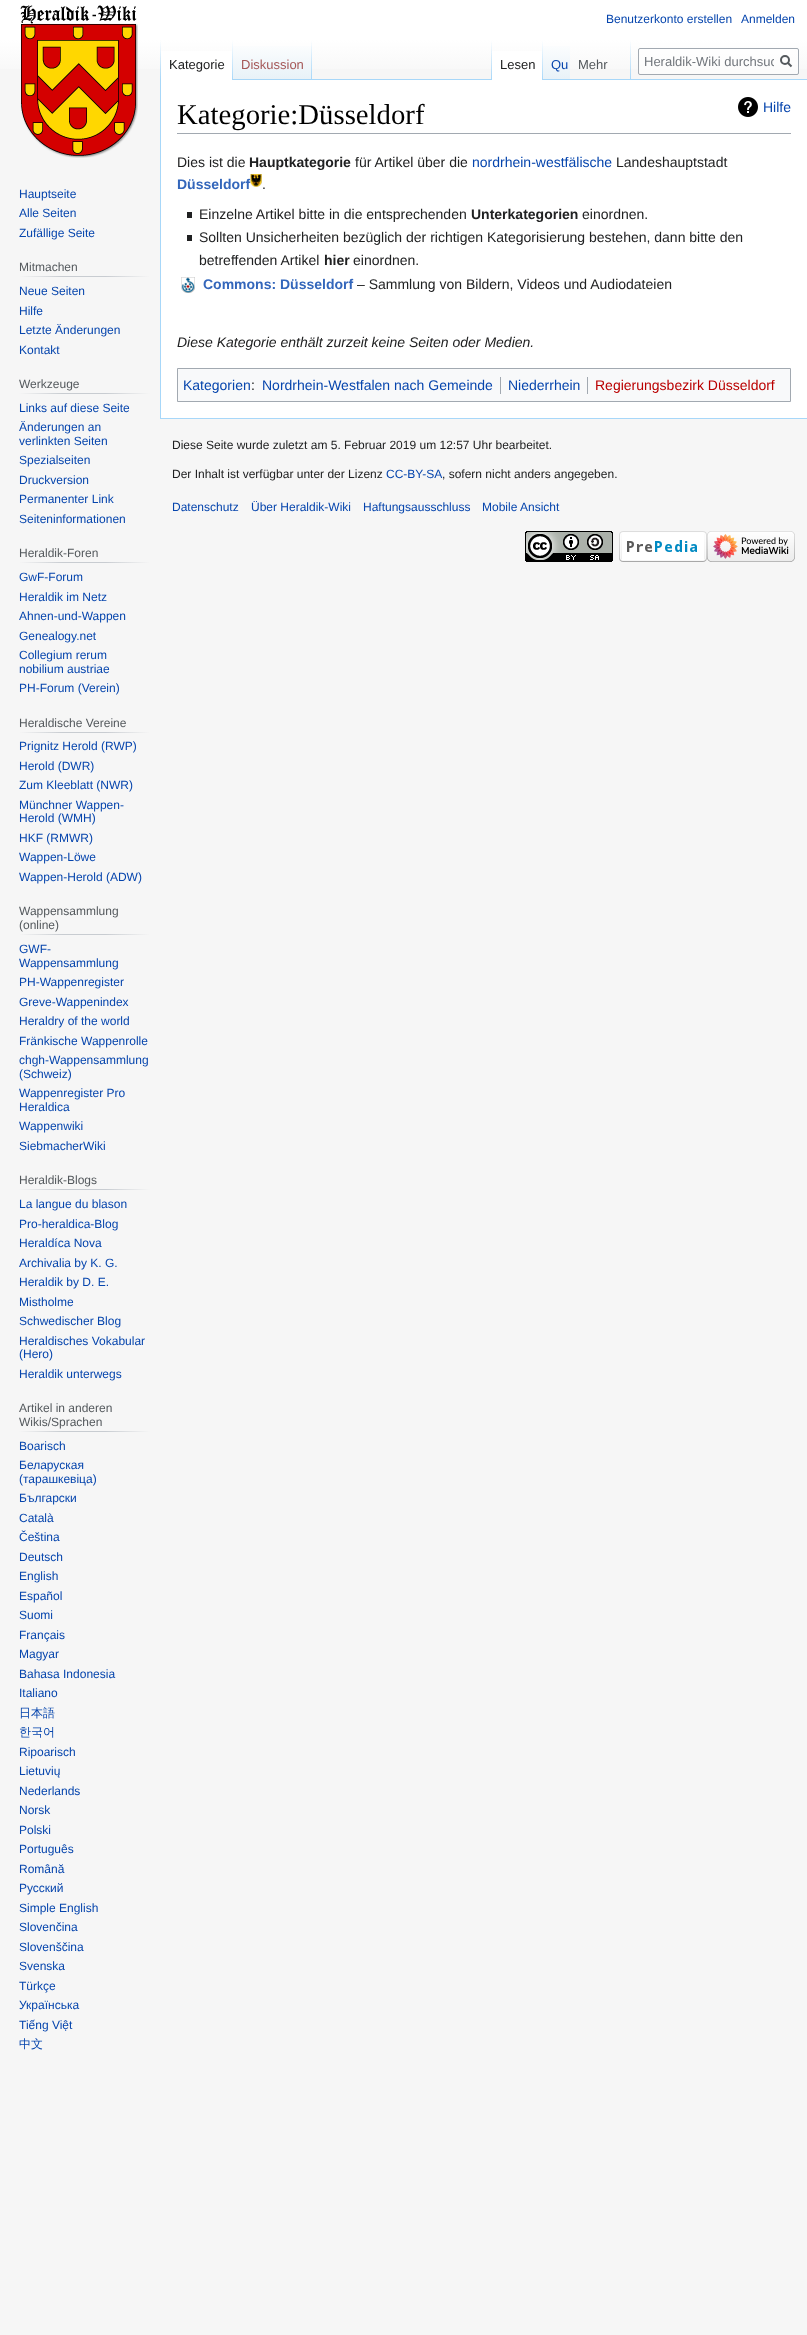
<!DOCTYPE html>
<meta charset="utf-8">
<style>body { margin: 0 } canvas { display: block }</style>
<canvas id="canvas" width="807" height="2335"></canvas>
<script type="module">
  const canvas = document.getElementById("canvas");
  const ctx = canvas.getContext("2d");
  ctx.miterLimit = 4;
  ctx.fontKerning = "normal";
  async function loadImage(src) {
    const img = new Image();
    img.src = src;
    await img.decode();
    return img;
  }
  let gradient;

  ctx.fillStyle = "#f6f6f6";
  ctx.fillRect(0, 0, 807, 2335);
  gradient = ctx.createLinearGradient(404, 0, 404, 80);
  gradient.addColorStop(0.5, "#ffffff");
  gradient.addColorStop(1, "#f6f6f6");
  ctx.fillStyle = gradient;
  ctx.fillRect(0, 0, 807, 69);
  ctx.font = "12px Liberation Sans";
  ctx.fillStyle = "#0645ad";
  ctx.fillText("Benutzerkonto erstellen", 606, 23);
  ctx.fillText("Anmelden", 741, 23);
  ctx.fillStyle = "#a7d7f9";
  ctx.fillRect(160, 418, 647, 1);
  ctx.fillRect(160, 79, 1, 340);
  gradient = ctx.createLinearGradient(161, 40, 161, 80);
  gradient.addColorStop(0, "rgba(167, 215, 249, 0)");
  gradient.addColorStop(1, "#a7d7f9");
  ctx.fillStyle = gradient;
  ctx.fillRect(160, 40, 1, 40);
  ctx.fillStyle = "#ffffff";
  ctx.fillRect(161, 51, 71, 29);
  gradient = ctx.createLinearGradient(233, 40, 233, 80);
  gradient.addColorStop(0, "#ffffff");
  gradient.addColorStop(1, "#a7d7f9");
  ctx.fillStyle = gradient;
  ctx.fillRect(232, 40, 1, 40);
  ctx.font = "13px Liberation Sans";
  ctx.fillStyle = "#202122";
  ctx.fillText("Kategorie", 169, 69);
  gradient = ctx.createLinearGradient(273, 80, 273, 40);
  gradient.addColorStop(0, "#77c1f6");
  gradient.addColorStop(0.03, "#e8f2f8");
  gradient.addColorStop(1, "#ffffff");
  ctx.fillStyle = gradient;
  ctx.fillRect(233, 46, 79, 34);
  gradient = ctx.createLinearGradient(312, 40, 312, 80);
  gradient.addColorStop(0, "rgba(167, 215, 249, 0)");
  gradient.addColorStop(1, "#a7d7f9");
  ctx.fillStyle = gradient;
  ctx.fillRect(311, 40, 1, 40);
  ctx.fillStyle = "#a55858";
  ctx.fillText("Diskussion", 241, 69);
  ctx.fillStyle = "#a7d7f9";
  ctx.fillRect(312, 79, 495, 1);
  gradient = ctx.createLinearGradient(492, 40, 492, 80);
  gradient.addColorStop(0, "rgba(167, 215, 249, 0)");
  gradient.addColorStop(1, "#a7d7f9");
  ctx.fillStyle = gradient;
  ctx.fillRect(491, 40, 1, 40);
  ctx.fillStyle = "#ffffff";
  ctx.fillRect(492, 51, 50, 29);
  gradient = ctx.createLinearGradient(543, 40, 543, 80);
  gradient.addColorStop(0, "#ffffff");
  gradient.addColorStop(1, "#a7d7f9");
  ctx.fillStyle = gradient;
  ctx.fillRect(542, 40, 1, 40);
  ctx.fillStyle = "#202122";
  ctx.fillText("Lesen", 500, 69);
  gradient = ctx.createLinearGradient(557, 80, 557, 40);
  gradient.addColorStop(0, "#77c1f6");
  gradient.addColorStop(0.03, "#e8f2f8");
  gradient.addColorStop(1, "#ffffff");
  ctx.fillStyle = gradient;
  ctx.fillRect(543, 46, 27, 33);
  ctx.fillStyle = "#0645ad";
  ctx.fillText("Qu", 551, 69);
  gradient = ctx.createLinearGradient(631, 40, 631, 80);
  gradient.addColorStop(0, "rgba(167, 215, 249, 0)");
  gradient.addColorStop(1, "#a7d7f9");
  ctx.fillStyle = gradient;
  ctx.fillRect(630, 40, 1, 40);
  ctx.fillStyle = "#54595d";
  ctx.fillText("Mehr", 578, 69);
  ctx.fillStyle = "rgba(255, 255, 255, 0.5)";
  ctx.beginPath();
  ctx.roundRect(638.5, 48.5, 160, 26, 1.5);
  ctx.fill();
  ctx.strokeStyle = "#a2a9b1";
  ctx.stroke();
  ctx.save();
  ctx.beginPath();
  ctx.rect(644, 54, 130, 15);
  ctx.clip();
  ctx.fillStyle = "#72777d";
  ctx.fillText("Heraldik-Wiki durchsuc", 644, 66);
  ctx.restore();
  ctx.beginPath();
  ctx.moveTo(791.5, 66.5);
  ctx.lineTo(787.5, 62.5);
  ctx.strokeStyle = "#54595d";
  ctx.lineWidth = 2;
  ctx.stroke();
  ctx.beginPath();
  ctx.arc(785, 60, 4, 0, Math.PI * 2);
  ctx.stroke();
  ctx.drawImage(await loadImage("img1.png"), 20, 5, 118, 153);
  ctx.font = "12px Liberation Sans";
  ctx.fillStyle = "#0645ad";
  ctx.fillText("Hauptseite", 19, 198);
  ctx.fillText("Alle Seiten", 19, 217);
  ctx.fillText("Zufällige Seite", 19, 237);
  gradient = ctx.createLinearGradient(19, 277, 150, 277);
  gradient.addColorStop(0, "#f6f6f6");
  gradient.addColorStop(0.33, "#c8ccd1");
  gradient.addColorStop(0.66, "#c8ccd1");
  gradient.addColorStop(1, "#f6f6f6");
  ctx.fillStyle = gradient;
  ctx.fillRect(19, 276, 131, 1);
  ctx.fillStyle = "#54595d";
  ctx.fillText("Mitmachen", 19, 271);
  ctx.fillStyle = "#0645ad";
  ctx.fillText("Neue Seiten", 19, 295);
  ctx.fillText("Hilfe", 19, 315);
  ctx.fillText("Letzte Änderungen", 19, 334);
  ctx.fillText("Kontakt", 19, 354);
  gradient = ctx.createLinearGradient(19, 394, 150, 394);
  gradient.addColorStop(0, "#f6f6f6");
  gradient.addColorStop(0.33, "#c8ccd1");
  gradient.addColorStop(0.66, "#c8ccd1");
  gradient.addColorStop(1, "#f6f6f6");
  ctx.fillStyle = gradient;
  ctx.fillRect(19, 393, 131, 1);
  ctx.fillStyle = "#54595d";
  ctx.fillText("Werkzeuge", 19, 388);
  ctx.fillStyle = "#0645ad";
  ctx.fillText("Links auf diese Seite", 19, 412);
  ctx.fillText("Änderungen an", 19, 431);
  ctx.fillText("verlinkten Seiten", 19, 445);
  ctx.fillText("Spezialseiten", 19, 464);
  ctx.fillText("Druckversion", 19, 484);
  ctx.fillText("Permanenter Link", 19, 503);
  ctx.fillText("Seiteninformationen", 19, 523);
  gradient = ctx.createLinearGradient(19, 563, 150, 563);
  gradient.addColorStop(0, "#f6f6f6");
  gradient.addColorStop(0.33, "#c8ccd1");
  gradient.addColorStop(0.66, "#c8ccd1");
  gradient.addColorStop(1, "#f6f6f6");
  ctx.fillStyle = gradient;
  ctx.fillRect(19, 562, 131, 1);
  ctx.fillStyle = "#54595d";
  ctx.fillText("Heraldik-Foren", 19, 557);
  ctx.fillStyle = "#0645ad";
  ctx.fillText("GwF-Forum", 19, 581);
  ctx.fillText("Heraldik im Netz", 19, 601);
  ctx.fillText("Ahnen-und-Wappen", 19, 620);
  ctx.fillText("Genealogy.net", 19, 640);
  ctx.fillText("Collegium rerum", 19, 659);
  ctx.fillText("nobilium austriae", 19, 673);
  ctx.fillText("PH-Forum (Verein)", 19, 692);
  gradient = ctx.createLinearGradient(19, 733, 150, 733);
  gradient.addColorStop(0, "#f6f6f6");
  gradient.addColorStop(0.33, "#c8ccd1");
  gradient.addColorStop(0.66, "#c8ccd1");
  gradient.addColorStop(1, "#f6f6f6");
  ctx.fillStyle = gradient;
  ctx.fillRect(19, 732, 131, 1);
  ctx.fillStyle = "#54595d";
  ctx.fillText("Heraldische Vereine", 19, 727);
  ctx.fillStyle = "#0645ad";
  ctx.fillText("Prignitz Herold (RWP)", 19, 750);
  ctx.fillText("Herold (DWR)", 19, 770);
  ctx.fillText("Zum Kleeblatt (NWR)", 19, 789);
  ctx.fillText("Münchner Wappen-", 19, 809);
  ctx.fillText("Herold (WMH)", 19, 822);
  ctx.fillText("HKF (RMWR)", 19, 842);
  ctx.fillText("Wappen-Löwe", 19, 861);
  ctx.fillText("Wappen-Herold (ADW)", 19, 881);
  gradient = ctx.createLinearGradient(19, 935, 150, 935);
  gradient.addColorStop(0, "#f6f6f6");
  gradient.addColorStop(0.33, "#c8ccd1");
  gradient.addColorStop(0.66, "#c8ccd1");
  gradient.addColorStop(1, "#f6f6f6");
  ctx.fillStyle = gradient;
  ctx.fillRect(19, 934, 131, 1);
  ctx.fillStyle = "#54595d";
  ctx.fillText("Wappensammlung", 19, 915);
  ctx.fillText("(online)", 19, 929);
  ctx.fillStyle = "#0645ad";
  ctx.fillText("GWF-", 19, 953);
  ctx.fillText("Wappensammlung", 19, 967);
  ctx.fillText("PH-Wappenregister", 19, 986);
  ctx.fillText("Greve-Wappenindex", 19, 1006);
  ctx.fillText("Heraldry of the world", 19, 1025);
  ctx.fillText("Fränkische Wappenrolle", 19, 1045);
  ctx.fillText("chgh-Wappensammlung", 19, 1064);
  ctx.fillText("(Schweiz)", 19, 1078);
  ctx.fillText("Wappenregister Pro", 19, 1097);
  ctx.fillText("Heraldica", 19, 1111);
  ctx.fillText("Wappenwiki", 19, 1130);
  ctx.fillText("SiebmacherWiki", 19, 1150);
  gradient = ctx.createLinearGradient(19, 1190, 150, 1190);
  gradient.addColorStop(0, "#f6f6f6");
  gradient.addColorStop(0.33, "#c8ccd1");
  gradient.addColorStop(0.66, "#c8ccd1");
  gradient.addColorStop(1, "#f6f6f6");
  ctx.fillStyle = gradient;
  ctx.fillRect(19, 1189, 131, 1);
  ctx.fillStyle = "#54595d";
  ctx.fillText("Heraldik-Blogs", 19, 1184);
  ctx.fillStyle = "#0645ad";
  ctx.fillText("La langue du blason", 19, 1208);
  ctx.fillText("Pro-heraldica-Blog", 19, 1228);
  ctx.fillText("Heraldíca Nova", 19, 1247);
  ctx.fillText("Archivalia by K. G.", 19, 1267);
  ctx.fillText("Heraldik by D. E.", 19, 1286);
  ctx.fillText("Mistholme", 19, 1306);
  ctx.fillText("Schwedischer Blog", 19, 1325);
  ctx.fillText("Heraldisches Vokabular", 19, 1345);
  ctx.fillText("(Hero)", 19, 1358);
  ctx.fillText("Heraldik unterwegs", 19, 1378);
  gradient = ctx.createLinearGradient(19, 1432, 150, 1432);
  gradient.addColorStop(0, "#f6f6f6");
  gradient.addColorStop(0.33, "#c8ccd1");
  gradient.addColorStop(0.66, "#c8ccd1");
  gradient.addColorStop(1, "#f6f6f6");
  ctx.fillStyle = gradient;
  ctx.fillRect(19, 1431, 131, 1);
  ctx.fillStyle = "#54595d";
  ctx.fillText("Artikel in anderen", 19, 1412);
  ctx.fillText("Wikis/Sprachen", 19, 1426);
  ctx.fillStyle = "#0645ad";
  ctx.fillText("Boarisch", 19, 1450);
  ctx.fillText("Беларуская", 19, 1469);
  ctx.fillText("(тарашкевіца)", 19, 1483);
  ctx.fillText("Български", 19, 1502);
  ctx.fillText("Català", 19, 1522);
  ctx.fillText("Čeština", 19, 1541);
  ctx.fillText("Deutsch", 19, 1561);
  ctx.fillText("English", 19, 1580);
  ctx.fillText("Español", 19, 1600);
  ctx.fillText("Suomi", 19, 1619);
  ctx.fillText("Français", 19, 1639);
  ctx.fillText("Magyar", 19, 1658);
  ctx.fillText("Bahasa Indonesia", 19, 1678);
  ctx.fillText("Italiano", 19, 1697);
  ctx.font = "500 12px WenQuanYi Zen Hei";
  ctx.fillText("日本語", 19, 1717);
  ctx.fillText("한국어", 19, 1736);
  ctx.font = "12px Liberation Sans";
  ctx.fillText("Ripoarisch", 19, 1756);
  ctx.fillText("Lietuvių", 19, 1775);
  ctx.fillText("Nederlands", 19, 1795);
  ctx.fillText("Norsk", 19, 1814);
  ctx.fillText("Polski", 19, 1834);
  ctx.fillText("Português", 19, 1853);
  ctx.fillText("Română", 19, 1873);
  ctx.fillText("Русский", 19, 1892);
  ctx.fillText("Simple English", 19, 1912);
  ctx.fillText("Slovenčina", 19, 1931);
  ctx.fillText("Slovenščina", 19, 1951);
  ctx.fillText("Svenska", 19, 1970);
  ctx.fillText("Türkçe", 19, 1990);
  ctx.fillText("Українська", 19, 2009);
  ctx.fillText("Tiếng Việt", 19, 2029);
  ctx.font = "500 12px WenQuanYi Zen Hei";
  ctx.fillText("中文", 19, 2048);
  ctx.fillStyle = "#ffffff";
  ctx.fillRect(161, 80, 646, 338);
  ctx.fillStyle = "#a2a9b1";
  ctx.fillRect(177, 133, 614, 1);
  ctx.font = "28.75px Liberation Serif";
  ctx.fillStyle = "#000000";
  ctx.fillText("Kategorie:Düsseldorf", 177, 124);
  ctx.drawImage(await loadImage("img2.png"), 738, 97, 20, 20);
  ctx.font = "14px Liberation Sans";
  ctx.fillStyle = "#0645ad";
  ctx.fillText("Hilfe", 763, 112);
  ctx.fillStyle = "#202122";
  ctx.fillText("Dies ist die", 177, 167);
  ctx.font = "bold 14px Liberation Sans";
  ctx.fillText("Hauptkategorie", 249, 167);
  ctx.font = "14px Liberation Sans";
  ctx.fillText("für Artikel über die", 355, 167);
  ctx.fillStyle = "#0645ad";
  ctx.fillText("nordrhein-westfälische", 472, 167);
  ctx.fillStyle = "#202122";
  ctx.fillText("Landeshauptstadt", 616, 167);
  ctx.font = "bold 14px Liberation Sans";
  ctx.fillStyle = "#3366bb";
  ctx.fillText("Düsseldorf", 177, 189);
  ctx.drawImage(await loadImage("img3.png"), 250, 174, 12, 13);
  ctx.font = "14px Liberation Sans";
  ctx.fillStyle = "#202122";
  ctx.fillText(".", 262, 189);
  ctx.fillRect(187, 212, 5, 6);
  ctx.fillText("Einzelne Artikel bitte in die entsprechenden", 199, 219);
  ctx.font = "bold 14px Liberation Sans";
  ctx.fillText("Unterkategorien", 471, 219);
  ctx.font = "14px Liberation Sans";
  ctx.fillText("einordnen.", 582, 219);
  ctx.fillRect(187, 235, 5, 6);
  ctx.fillText("Sollten Unsicherheiten bezüglich der richtigen Kategorisierung bestehen, dann bitte den", 199, 242);
  ctx.fillText("betreffenden Artikel", 199, 265);
  ctx.font = "bold 14px Liberation Sans";
  ctx.fillText("hier", 324, 265);
  ctx.font = "14px Liberation Sans";
  ctx.fillText("einordnen.", 353, 265);
  ctx.drawImage(await loadImage("img4.png"), 181, 277, 14, 16);
  ctx.font = "bold 14px Liberation Sans";
  ctx.fillStyle = "#3366bb";
  ctx.fillText("Commons: Düsseldorf", 203, 289);
  ctx.font = "14px Liberation Sans";
  ctx.fillStyle = "#202122";
  ctx.fillText("– Sammlung von Bildern, Videos und Audiodateien", 357, 289);
  ctx.font = "italic 14px Liberation Sans";
  ctx.fillText("Diese Kategorie enthält zurzeit keine Seiten oder Medien.", 177, 347);
  ctx.fillStyle = "#f8f9fa";
  ctx.beginPath();
  ctx.rect(177.5, 368.5, 613, 33);
  ctx.fill();
  ctx.strokeStyle = "#a2a9b1";
  ctx.lineWidth = 1;
  ctx.stroke();
  ctx.font = "14px Liberation Sans";
  ctx.fillStyle = "#0645ad";
  ctx.fillText("Kategorien", 183, 390);
  ctx.fillStyle = "#202122";
  ctx.fillText(":", 251, 390);
  ctx.fillStyle = "#0645ad";
  ctx.fillText("Nordrhein-Westfalen nach Gemeinde", 262, 390);
  ctx.fillStyle = "#a2a9b1";
  ctx.fillRect(500, 377, 1, 17);
  ctx.fillStyle = "#0645ad";
  ctx.fillText("Niederrhein", 508, 390);
  ctx.fillStyle = "#a2a9b1";
  ctx.fillRect(587, 377, 1, 17);
  ctx.fillStyle = "#ba0000";
  ctx.fillText("Regierungsbezirk Düsseldorf", 595, 390);
  ctx.font = "12px Liberation Sans";
  ctx.fillStyle = "#202122";
  ctx.fillText("Diese Seite wurde zuletzt am 5. Februar 2019 um 12:57 Uhr bearbeitet.", 172, 449);
  ctx.fillText("Der Inhalt ist verfügbar unter der Lizenz", 172, 478);
  ctx.fillStyle = "#0645ad";
  ctx.fillText("CC-BY-SA", 386, 478);
  ctx.fillStyle = "#202122";
  ctx.fillText(", sofern nicht anders angegeben.", 442, 478);
  ctx.fillStyle = "#0645ad";
  ctx.fillText("Datenschutz", 172, 511);
  ctx.fillText("Über Heraldik-Wiki", 251, 511);
  ctx.fillText("Haftungsausschluss", 363, 511);
  ctx.fillText("Mobile Ansicht", 482, 511);
  ctx.drawImage(await loadImage("img5.png"), 525, 531, 88, 31);
  ctx.drawImage(await loadImage("img6.png"), 619, 531, 88, 31);
  ctx.drawImage(await loadImage("img7.png"), 707, 531, 88, 31);
</script>
